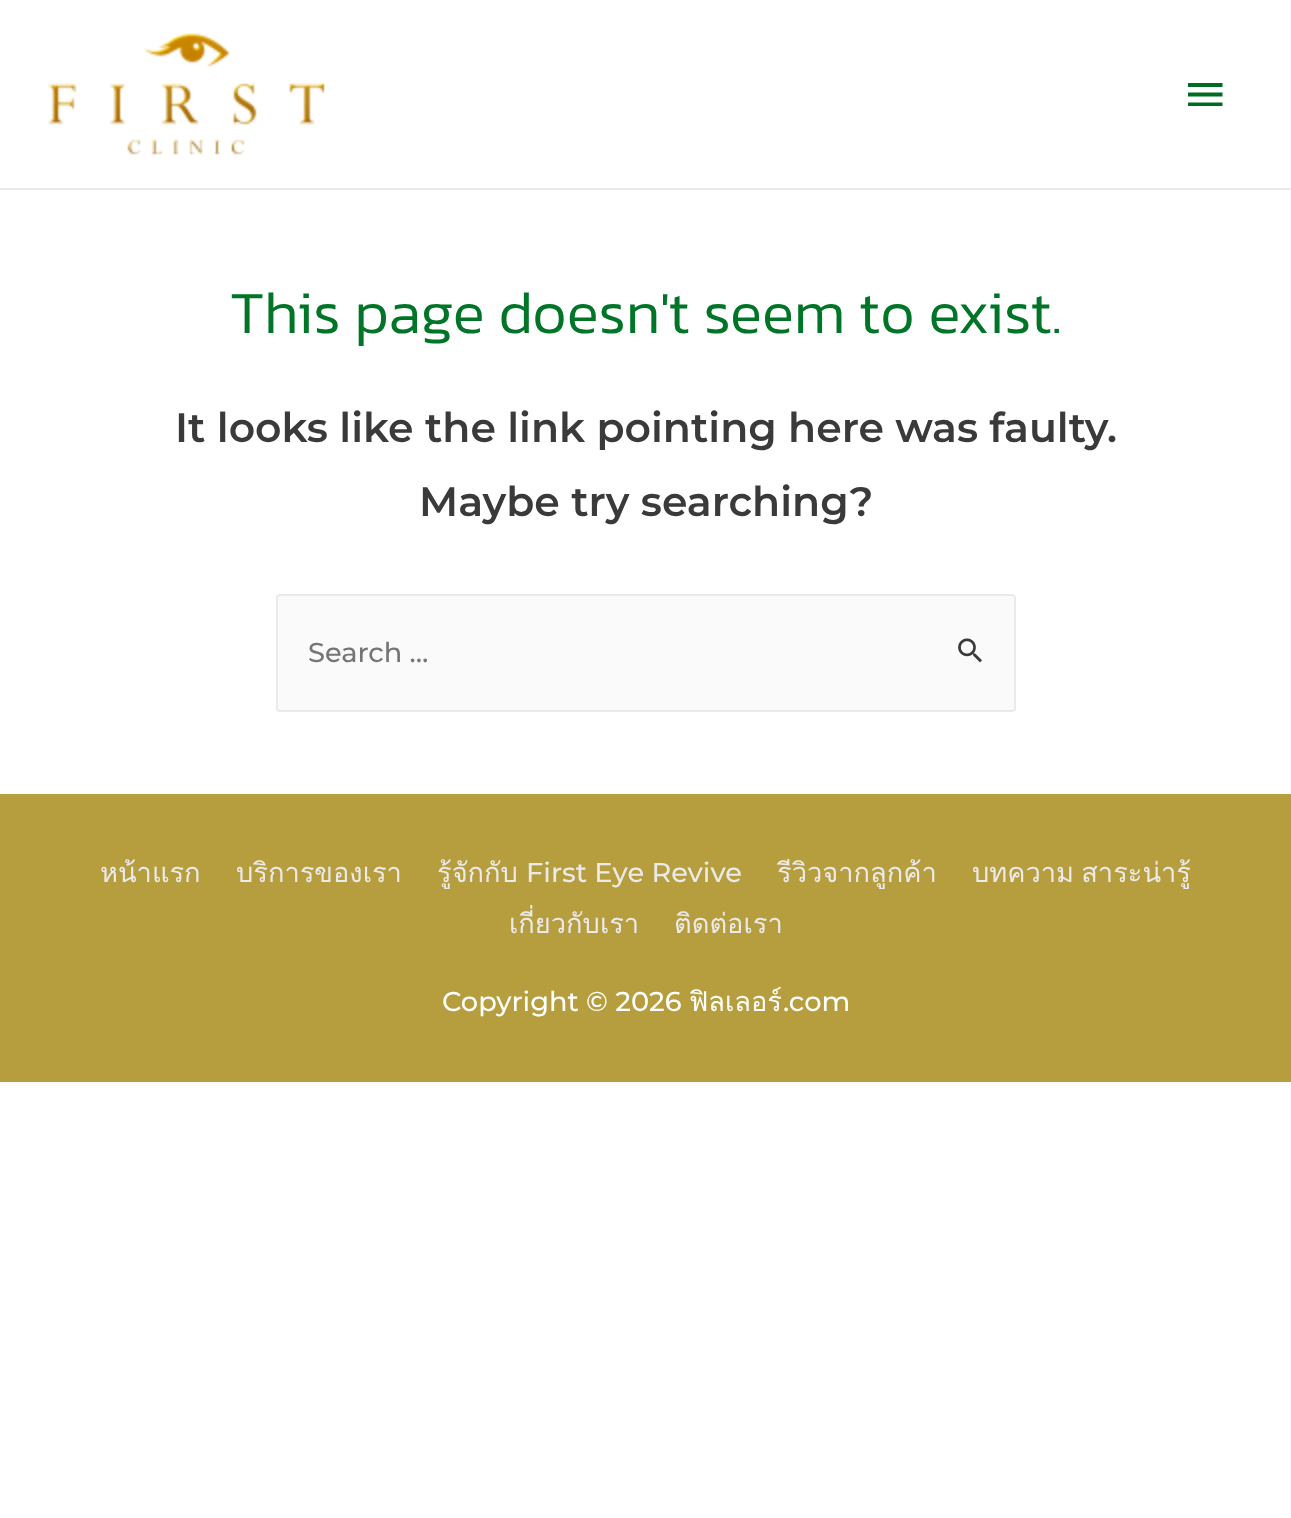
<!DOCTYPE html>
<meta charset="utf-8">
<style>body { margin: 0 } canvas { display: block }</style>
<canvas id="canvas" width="1291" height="1518"></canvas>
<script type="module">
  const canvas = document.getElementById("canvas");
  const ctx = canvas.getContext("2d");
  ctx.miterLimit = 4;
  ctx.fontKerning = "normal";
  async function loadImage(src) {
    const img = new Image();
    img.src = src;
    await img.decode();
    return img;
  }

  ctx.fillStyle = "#ffffff";
  ctx.fillRect(0, 0, 1291, 1518);
  ctx.fillStyle = "#eaeaea";
  ctx.fillRect(0, 188, 1291, 2);
  ctx.drawImage(await loadImage("img1.png"), 47, 33, 278, 122);
  ctx.fillStyle = "#006b23";
  ctx.beginPath();
  ctx.moveTo(1188, 83);
  ctx.lineTo(1222.5, 83);
  ctx.lineTo(1222.5, 87);
  ctx.lineTo(1188, 87);
  ctx.closePath();
  ctx.moveTo(1188, 96.5);
  ctx.lineTo(1188, 92.5);
  ctx.lineTo(1222.5, 92.5);
  ctx.lineTo(1222.5, 96.5);
  ctx.closePath();
  ctx.moveTo(1188, 106);
  ctx.lineTo(1188, 102.5);
  ctx.lineTo(1222.5, 102.5);
  ctx.lineTo(1222.5, 106);
  ctx.closePath();
  ctx.fill();
  ctx.font = "300 60px Kanit";
  ctx.fillStyle = "#007527";
  ctx.fillText("This page doesn't seem to exist.", 230, 333);
  ctx.font = "600 41px Montserrat";
  ctx.fillStyle = "#3a3a3a";
  ctx.fillText("It looks like the link pointing here was faulty.", 175, 442);
  ctx.fillText("Maybe try searching?", 419, 516);
  ctx.fillStyle = "#fafafa";
  ctx.beginPath();
  ctx.roundRect(277, 595, 738, 116, 3);
  ctx.fill();
  ctx.strokeStyle = "#eaeaea";
  ctx.lineWidth = 2;
  ctx.stroke();
  ctx.font = "500 27.25px Montserrat";
  ctx.fillStyle = "#757575";
  ctx.fillText("Search …", 308, 662);
  ctx.drawImage(await loadImage("img2.png"), 958, 638, 24, 25);
  ctx.fillStyle = "#b69d3e";
  ctx.fillRect(0, 794, 1291, 288);
  ctx.font = "27.25px Loma";
  ctx.fillStyle = "#eaeaea";
  ctx.fillText("หน้าแรก", 100, 882);
  ctx.fillText("บริการของเรา", 236, 882);
  ctx.fillText("รู้จักกับ", 437, 882);
  ctx.font = "500 27.25px Montserrat";
  ctx.fillText("First Eye Revive", 526, 882);
  ctx.font = "27.25px Loma";
  ctx.fillText("รีวิวจากลูกค้า", 777, 882);
  ctx.wordSpacing = "-2px";
  ctx.fillText("บทความ สาระน่ารู้", 972, 882);
  ctx.wordSpacing = "0px";
  ctx.fillText("เกี่ยวกับเรา", 509, 933);
  ctx.fillText("ติดต่อเรา", 674, 933);
  ctx.font = "500 27.25px Montserrat";
  ctx.fillStyle = "#ffffff";
  ctx.fillText("Copyright © 2026", 442, 1011);
  ctx.font = "27.25px Loma";
  ctx.fillText("ฟิลเลอร์", 689, 1011);
  ctx.font = "500 27.25px Montserrat";
  ctx.fillText(".com", 783, 1011);
</script>
